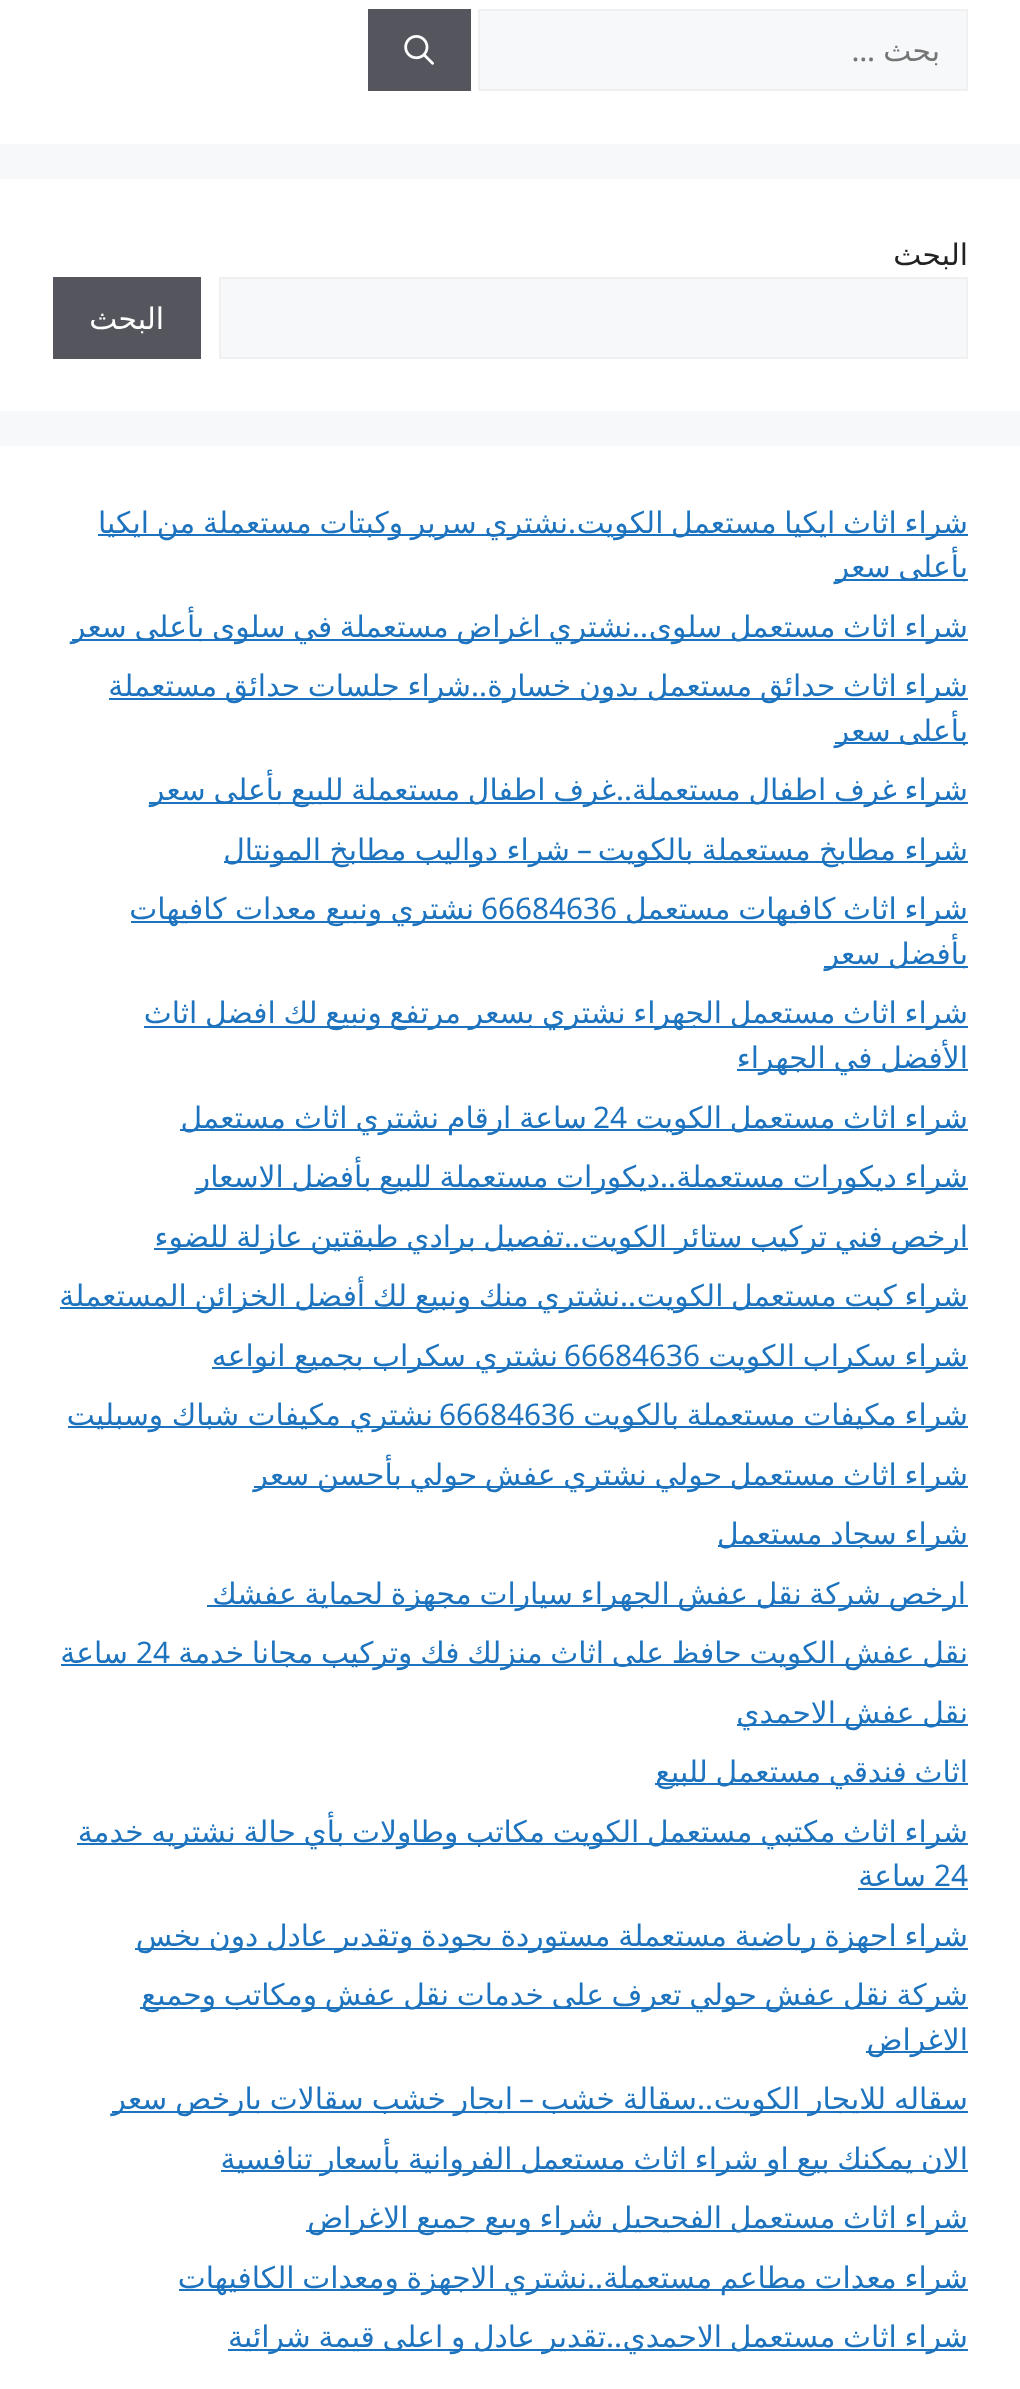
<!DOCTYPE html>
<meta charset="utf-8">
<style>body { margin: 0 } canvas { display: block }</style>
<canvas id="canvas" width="1020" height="2389"></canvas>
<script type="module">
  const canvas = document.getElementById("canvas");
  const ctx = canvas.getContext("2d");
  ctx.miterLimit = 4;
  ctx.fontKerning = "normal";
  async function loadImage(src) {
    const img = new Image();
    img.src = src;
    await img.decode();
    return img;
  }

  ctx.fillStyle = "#f7f8f9";
  ctx.fillRect(0, 0, 1020, 2389);
  ctx.fillStyle = "#ffffff";
  ctx.fillRect(0, 0, 1020, 144);
  ctx.fillStyle = "#f7f8f9";
  ctx.beginPath();
  ctx.rect(479, 10, 488, 80);
  ctx.fill();
  ctx.strokeStyle = "#f0f0f0";
  ctx.lineWidth = 2;
  ctx.stroke();
  ctx.direction = "rtl";
  ctx.font = "29.75px DejaVu Sans";
  ctx.fillStyle = "#757575";
  ctx.fillText("بحث", 940, 61);
  ctx.font = "29.75px Noto Sans";
  ctx.fillText("…", 875, 61);
  ctx.fillStyle = "#55555e";
  ctx.fillRect(368, 9, 103, 82);
  ctx.drawImage(await loadImage("img1.png"), 404, 35, 30, 30);
  ctx.fillStyle = "#ffffff";
  ctx.fillRect(0, 179, 1020, 232);
  ctx.font = "29.75px DejaVu Sans";
  ctx.fillStyle = "#222222";
  ctx.fillText("البحث", 968, 265);
  ctx.fillStyle = "#f7f8f9";
  ctx.beginPath();
  ctx.rect(220, 278, 747, 80);
  ctx.fill();
  ctx.stroke();
  ctx.fillStyle = "#55555e";
  ctx.fillRect(53, 277, 148, 82);
  ctx.fillStyle = "#ffffff";
  ctx.fillText("البحث", 164, 329);
  ctx.fillRect(0, 446, 1020, 1943);
  ctx.fillStyle = "#1e73be";
  ctx.fillRect(98, 534, 870, 2);
  ctx.wordSpacing = "-1.75px";
  ctx.fillText("شراء اثاث ايكيا مستعمل الكويت", 968, 533);
  ctx.wordSpacing = "0px";
  ctx.font = "29.75px Noto Sans";
  ctx.fillText(".", 576, 533);
  ctx.wordSpacing = "-1.75px";
  ctx.font = "29.75px DejaVu Sans";
  ctx.fillText("نشتري سرير وكبتات مستعملة من ايكيا", 568, 533);
  ctx.fillRect(835, 579, 133, 2);
  ctx.fillText("بأعلى سعر", 968, 577);
  ctx.fillRect(72, 639, 896, 2);
  ctx.fillText("شراء اثاث مستعمل سلوى", 968, 637);
  ctx.wordSpacing = "0px";
  ctx.font = "29.75px Noto Sans";
  ctx.fillText("..", 648, 637);
  ctx.wordSpacing = "-1.75px";
  ctx.font = "29.75px DejaVu Sans";
  ctx.fillText("نشتري اغراض مستعملة في سلوى بأعلى سعر", 632, 637);
  ctx.fillRect(109, 698, 859, 2);
  ctx.fillText("شراء اثاث حدائق مستعمل بدون خسارة", 968, 696);
  ctx.wordSpacing = "0px";
  ctx.font = "29.75px Noto Sans";
  ctx.fillText("..", 487, 696);
  ctx.wordSpacing = "-1.75px";
  ctx.font = "29.75px DejaVu Sans";
  ctx.fillText("شراء جلسات حدائق مستعملة", 471, 696);
  ctx.fillRect(835, 742, 133, 2);
  ctx.fillText("بأعلى سعر", 968, 741);
  ctx.fillRect(149, 802, 819, 2);
  ctx.fillText("شراء غرف اطفال مستعملة", 968, 800);
  ctx.wordSpacing = "0px";
  ctx.font = "29.75px Noto Sans";
  ctx.fillText("..", 632, 800);
  ctx.wordSpacing = "-1.75px";
  ctx.font = "29.75px DejaVu Sans";
  ctx.fillText("غرف اطفال مستعملة للبيع بأعلى سعر", 616, 800);
  ctx.fillRect(224, 861, 744, 2);
  ctx.wordSpacing = "-1px";
  ctx.fillText("شراء مطابخ مستعملة بالكويت", 968, 860);
  ctx.wordSpacing = "0px";
  ctx.font = "29.75px Noto Sans";
  ctx.fillText("–", 592, 860);
  ctx.wordSpacing = "-1px";
  ctx.font = "29.75px DejaVu Sans";
  ctx.fillText("شراء دواليب مطابخ المونتال", 570, 860);
  ctx.fillRect(131, 921, 837, 2);
  ctx.wordSpacing = "-1.75px";
  ctx.fillText("شراء اثاث كافيهات مستعمل", 968, 919);
  ctx.wordSpacing = "0px";
  ctx.direction = "ltr";
  ctx.font = "29.75px Noto Sans";
  ctx.fillText("66684636", 481, 919);
  ctx.wordSpacing = "-1px";
  ctx.direction = "rtl";
  ctx.font = "29.75px DejaVu Sans";
  ctx.fillText("نشتري ونبيع معدات كافيهات", 474, 919);
  ctx.fillRect(824, 966, 144, 2);
  ctx.wordSpacing = "-1.75px";
  ctx.fillText("بأفضل سعر", 968, 964);
  ctx.fillRect(144, 1026, 824, 2);
  ctx.fillText("شراء اثاث مستعمل الجهراء نشتري بسعر مرتفع ونبيع لك افضل اثاث", 968, 1023);
  ctx.fillRect(737, 1069, 231, 2);
  ctx.fillText("الأفضل في الجهراء", 968, 1068);
  ctx.fillRect(180, 1129, 788, 2);
  ctx.fillText("شراء اثاث مستعمل الكويت", 968, 1128);
  ctx.wordSpacing = "0px";
  ctx.direction = "ltr";
  ctx.font = "29.75px Noto Sans";
  ctx.fillText("24", 593, 1128);
  ctx.wordSpacing = "-1.5px";
  ctx.direction = "rtl";
  ctx.font = "29.75px DejaVu Sans";
  ctx.fillText("ساعة ارقام نشتري اثاث مستعمل", 587, 1128);
  ctx.fillRect(196, 1188, 772, 2);
  ctx.wordSpacing = "-1.75px";
  ctx.fillText("شراء ديكورات مستعملة", 968, 1187);
  ctx.wordSpacing = "0px";
  ctx.font = "29.75px Noto Sans";
  ctx.fillText("..", 676, 1187);
  ctx.wordSpacing = "-1.75px";
  ctx.font = "29.75px DejaVu Sans";
  ctx.fillText("ديكورات مستعملة للبيع بأفضل الاسعار", 660, 1187);
  ctx.fillRect(154, 1248, 814, 2);
  ctx.fillText("ارخص فني تركيب ستائر الكويت", 968, 1247);
  ctx.wordSpacing = "0px";
  ctx.font = "29.75px Noto Sans";
  ctx.fillText("..", 580, 1247);
  ctx.wordSpacing = "-1.75px";
  ctx.font = "29.75px DejaVu Sans";
  ctx.fillText("تفصيل برادي طبقتين عازلة للضوء", 564, 1247);
  ctx.fillRect(60, 1307, 908, 2);
  ctx.fillText("شراء كبت مستعمل الكويت", 968, 1306);
  ctx.wordSpacing = "0px";
  ctx.font = "29.75px Noto Sans";
  ctx.fillText("..", 636, 1306);
  ctx.wordSpacing = "-1.75px";
  ctx.font = "29.75px DejaVu Sans";
  ctx.fillText("نشتري منك ونبيع لك أفضل الخزائن المستعملة", 620, 1306);
  ctx.fillRect(212, 1367, 756, 2);
  ctx.fillText("شراء سكراب الكويت", 968, 1366);
  ctx.wordSpacing = "0px";
  ctx.direction = "ltr";
  ctx.font = "29.75px Noto Sans";
  ctx.fillText("66684636", 564, 1366);
  ctx.wordSpacing = "-1px";
  ctx.direction = "rtl";
  ctx.font = "29.75px DejaVu Sans";
  ctx.fillText("نشتري سكراب بجميع انواعه", 558, 1366);
  ctx.fillRect(68, 1426, 900, 2);
  ctx.wordSpacing = "-1.75px";
  ctx.fillText("شراء مكيفات مستعملة بالكويت", 968, 1425);
  ctx.wordSpacing = "0px";
  ctx.direction = "ltr";
  ctx.font = "29.75px Noto Sans";
  ctx.fillText("66684636", 439, 1425);
  ctx.wordSpacing = "-1px";
  ctx.direction = "rtl";
  ctx.font = "29.75px DejaVu Sans";
  ctx.fillText("نشتري مكيفات شباك وسبليت", 433, 1425);
  ctx.fillRect(254, 1486, 714, 2);
  ctx.wordSpacing = "-1.75px";
  ctx.fillText("شراء اثاث مستعمل حولي نشتري عفش حولي بأحسن سعر", 968, 1485);
  ctx.fillRect(718, 1545, 250, 2);
  ctx.fillText("شراء سجاد مستعمل", 968, 1544);
  ctx.fillRect(207, 1605, 761, 2);
  ctx.fillText("ارخص شركة نقل عفش الجهراء سيارات مجهزة لحماية عفشك", 966, 1604);
  ctx.fillRect(61, 1664, 907, 2);
  ctx.fillText("نقل عفش الكويت حافظ على اثاث منزلك فك وتركيب مجانا خدمة", 968, 1663);
  ctx.wordSpacing = "0px";
  ctx.direction = "ltr";
  ctx.font = "29.75px Noto Sans";
  ctx.fillText("24", 136, 1663);
  ctx.direction = "rtl";
  ctx.font = "29.75px DejaVu Sans";
  ctx.fillText("ساعة", 128, 1663);
  ctx.fillRect(737, 1724, 231, 2);
  ctx.wordSpacing = "-1.75px";
  ctx.fillText("نقل عفش الاحمدي", 968, 1723);
  ctx.fillRect(655, 1783, 313, 2);
  ctx.fillText("اثاث فندقي مستعمل للبيع", 968, 1782);
  ctx.fillRect(77, 1843, 891, 2);
  ctx.fillText("شراء اثاث مكتبي مستعمل الكويت مكاتب وطاولات بأي حالة نشتريه خدمة", 968, 1842);
  ctx.wordSpacing = "0px";
  ctx.direction = "ltr";
  ctx.font = "29.75px Noto Sans";
  ctx.fillText("24", 934, 1886);
  ctx.direction = "rtl";
  ctx.font = "29.75px DejaVu Sans";
  ctx.fillText("ساعة", 926, 1886);
  ctx.fillRect(858, 1888, 110, 2);
  ctx.fillRect(135, 1948, 833, 2);
  ctx.wordSpacing = "-1.75px";
  ctx.fillText("شراء اجهزة رياضية مستعملة مستوردة بجودة وتقدير عادل دون بخس", 968, 1946);
  ctx.fillRect(140, 2007, 828, 2);
  ctx.fillText("شركة نقل عفش حولي تعرف على خدمات نقل عفش ومكاتب وجميع", 968, 2005);
  ctx.fillRect(866, 2051, 102, 2);
  ctx.wordSpacing = "0px";
  ctx.fillText("الاغراض", 968, 2050);
  ctx.fillRect(112, 2111, 856, 2);
  ctx.wordSpacing = "-1.5px";
  ctx.fillText("سقاله للايجار الكويت", 968, 2109);
  ctx.fillText("سقالة خشب", 697, 2109);
  ctx.wordSpacing = "0px";
  ctx.font = "29.75px Noto Sans";
  ctx.fillText("–", 534, 2109);
  ctx.wordSpacing = "-1.5px";
  ctx.font = "29.75px DejaVu Sans";
  ctx.fillText("ايجار خشب سقالات بارخص سعر", 513, 2109);
  ctx.wordSpacing = "0px";
  ctx.font = "29.75px Noto Sans";
  ctx.fillText("..", 713, 2109);
  ctx.fillRect(221, 2170, 747, 2);
  ctx.wordSpacing = "-1.75px";
  ctx.font = "29.75px DejaVu Sans";
  ctx.fillText("الان يمكنك بيع او شراء اثاث مستعمل الفروانية بأسعار تنافسية", 968, 2169);
  ctx.fillRect(306, 2230, 662, 2);
  ctx.fillText("شراء اثاث مستعمل الفحيحيل شراء وبيع جميع الاغراض", 968, 2228);
  ctx.fillRect(179, 2289, 789, 2);
  ctx.fillText("شراء معدات مطاعم مستعملة", 968, 2288);
  ctx.wordSpacing = "0px";
  ctx.font = "29.75px Noto Sans";
  ctx.fillText("..", 603, 2288);
  ctx.wordSpacing = "-1.75px";
  ctx.font = "29.75px DejaVu Sans";
  ctx.fillText("نشتري الاجهزة ومعدات الكافيهات", 587, 2288);
  ctx.fillRect(228, 2349, 740, 2);
  ctx.fillText("شراء اثاث مستعمل الاحمدي", 968, 2347);
  ctx.wordSpacing = "0px";
  ctx.font = "29.75px Noto Sans";
  ctx.fillText("..", 622, 2347);
  ctx.wordSpacing = "-1.75px";
  ctx.font = "29.75px DejaVu Sans";
  ctx.fillText("تقدير عادل و اعلى قيمة شرائية", 606, 2347);
</script>
